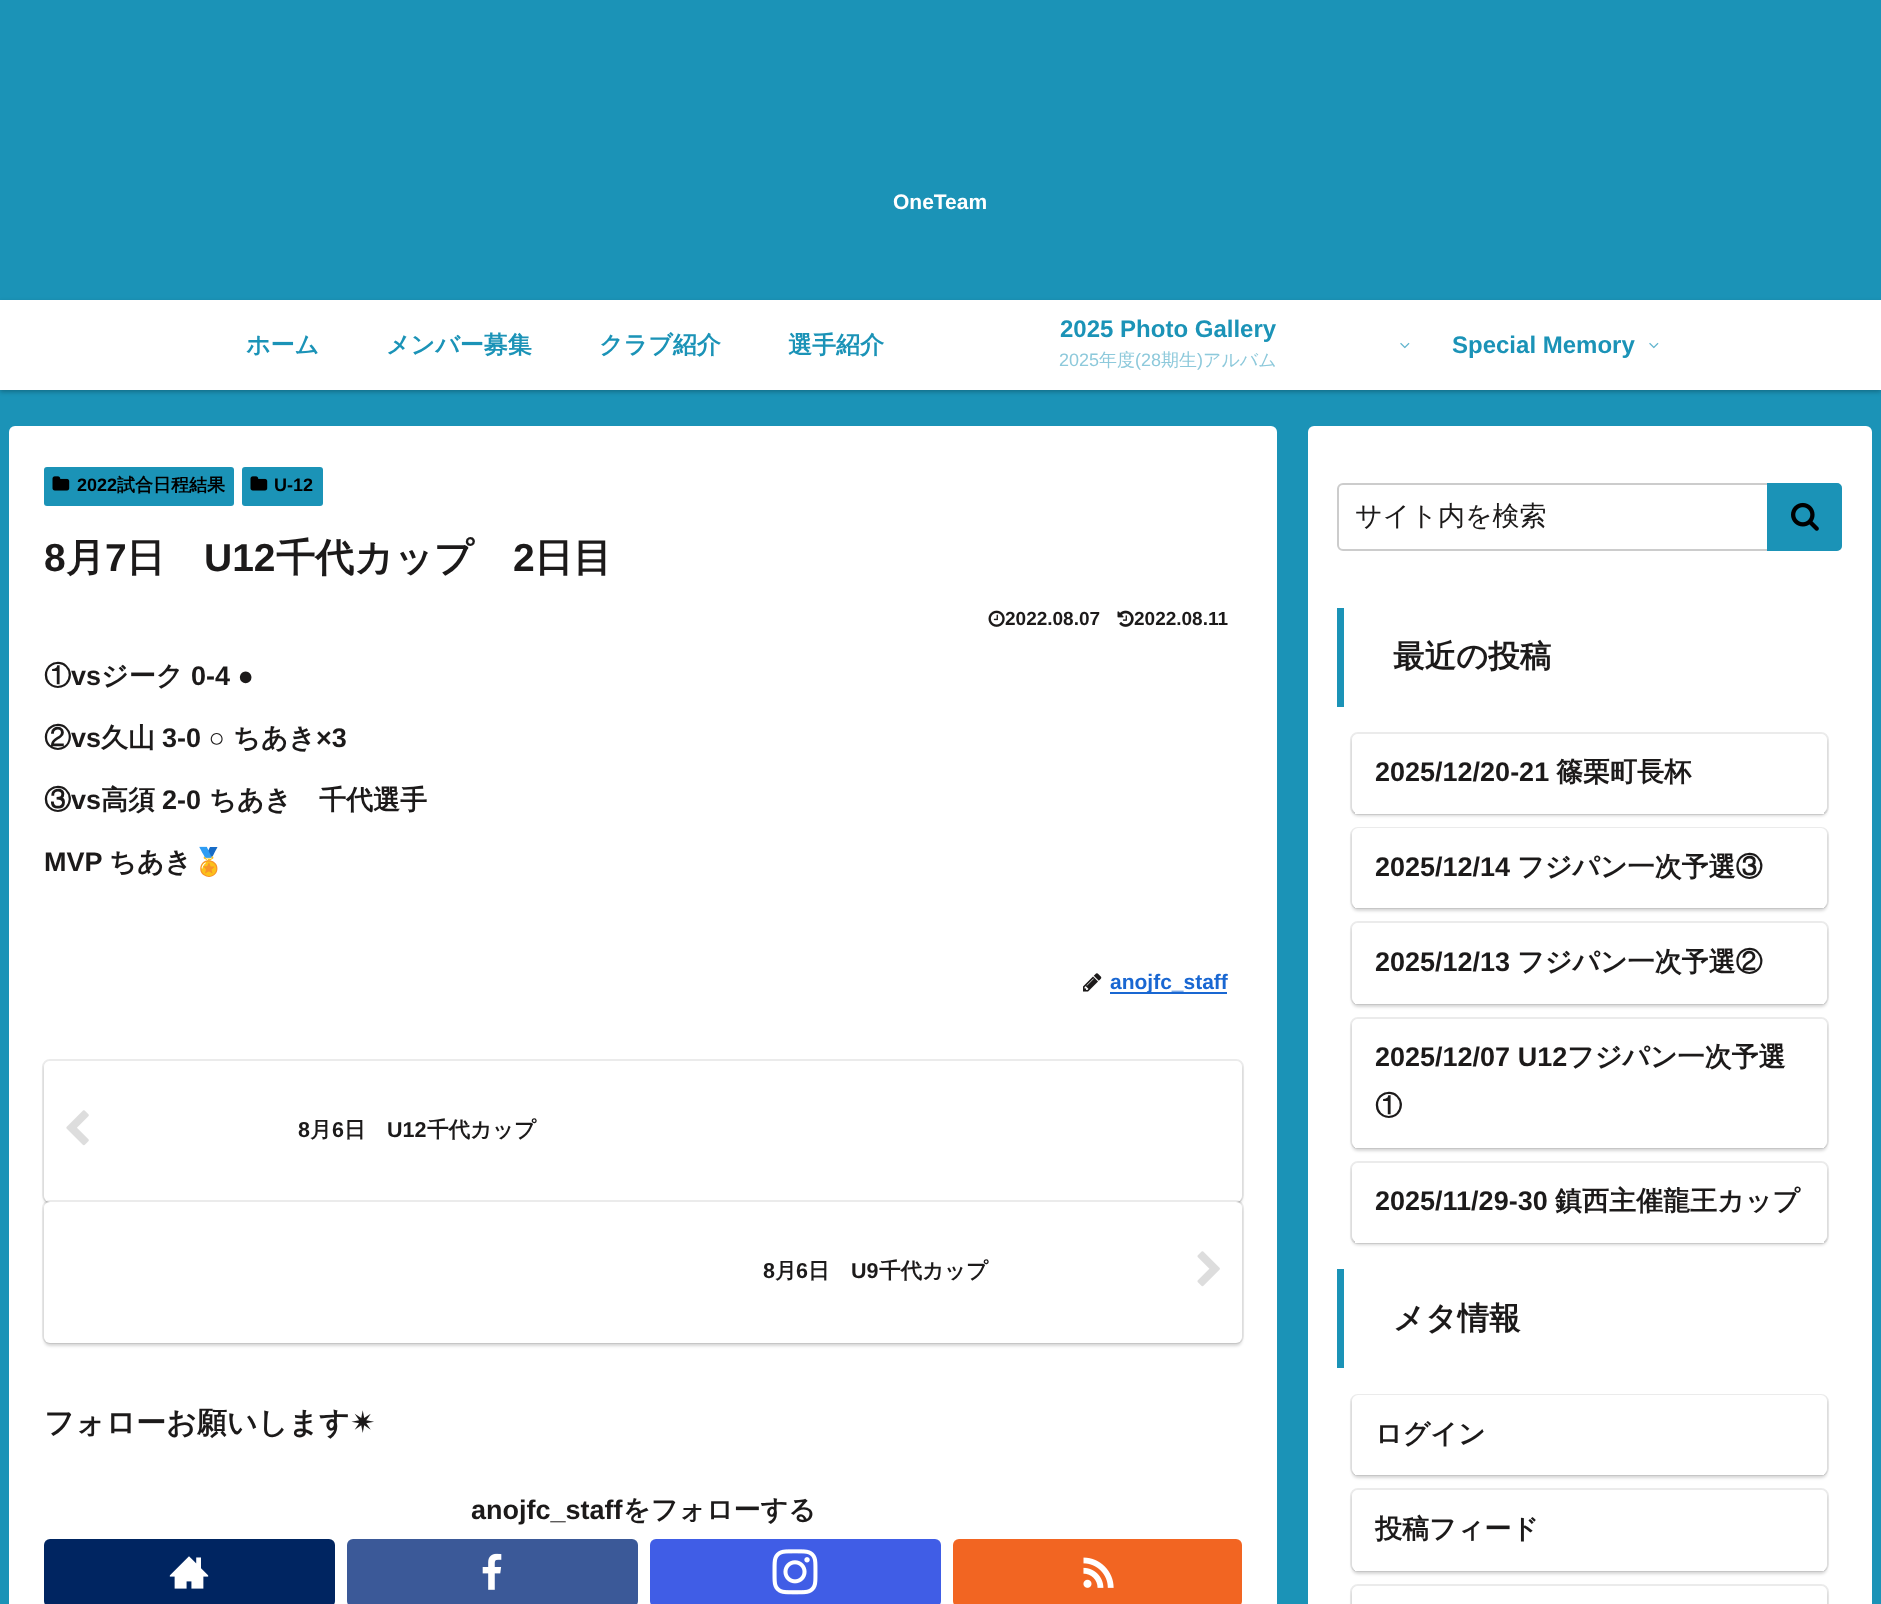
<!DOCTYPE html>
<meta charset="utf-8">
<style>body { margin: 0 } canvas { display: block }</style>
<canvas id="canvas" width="1881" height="1604"></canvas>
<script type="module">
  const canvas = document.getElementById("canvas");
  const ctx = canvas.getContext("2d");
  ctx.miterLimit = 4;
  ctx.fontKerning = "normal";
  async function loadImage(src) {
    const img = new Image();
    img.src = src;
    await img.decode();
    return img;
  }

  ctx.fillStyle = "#1b93b7";
  ctx.fillRect(0, 0, 1881, 1604);
  ctx.font = "bold 21px Liberation Sans";
  ctx.fillStyle = "#ffffff";
  ctx.fillText("OneTeam", 893, 209);
  ctx.fillStyle = "rgba(0, 0, 0, 0.25)";
  ctx.filter = "blur(2px)";
  ctx.beginPath();
  ctx.rect(0, 302, 1881, 90);
  ctx.fill();
  ctx.filter = "none";
  ctx.fillStyle = "#ffffff";
  ctx.fillRect(0, 300, 1881, 90);
  ctx.font = "bold 24px WenQuanYi Zen Hei";
  ctx.fillStyle = "#1b93b7";
  ctx.fillText("ホーム", 246, 353);
  ctx.fillText("メンバー募集", 386, 353);
  ctx.fillText("クラブ紹介", 599, 353);
  ctx.fillText("選手紹介", 788, 353);
  ctx.font = "bold 24px Liberation Sans";
  ctx.fillText("2025 Photo Gallery", 1060, 337);
  ctx.font = "18px Liberation Sans";
  ctx.fillStyle = "#8dc9db";
  ctx.fillText("2025", 1059, 366);
  ctx.font = "500 18px WenQuanYi Zen Hei";
  ctx.fillText("年度", 1099, 366);
  ctx.font = "18px Liberation Sans";
  ctx.fillText("(28", 1135, 366);
  ctx.font = "500 18px WenQuanYi Zen Hei";
  ctx.fillText("期生", 1161, 366);
  ctx.font = "18px Liberation Sans";
  ctx.fillText(")", 1197, 366);
  ctx.font = "500 18px WenQuanYi Zen Hei";
  ctx.fillText("アルバム", 1203, 366);
  ctx.drawImage(await loadImage("img1.png"), 1400, 342, 10, 7);
  ctx.font = "bold 24px Liberation Sans";
  ctx.fillStyle = "#1b93b7";
  ctx.fillText("Special Memory", 1452, 353);
  ctx.drawImage(await loadImage("img1.png"), 1649, 342, 10, 7);
  ctx.fillStyle = "#ffffff";
  ctx.beginPath();
  ctx.roundRect(9, 426, 1268, 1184, 6);
  ctx.fill();
  ctx.fillStyle = "#1b93b7";
  ctx.beginPath();
  ctx.roundRect(44, 467, 190, 39, 3);
  ctx.fill();
  ctx.drawImage(await loadImage("img2.png"), 52, 476, 18, 15);
  ctx.font = "bold 18px Liberation Sans";
  ctx.fillStyle = "#000000";
  ctx.fillText("2022", 77, 491);
  ctx.font = "bold 18px WenQuanYi Zen Hei";
  ctx.fillText("試合日程結果", 117, 491);
  ctx.fillStyle = "#1b93b7";
  ctx.beginPath();
  ctx.roundRect(242, 467, 81, 39, 3);
  ctx.fill();
  ctx.drawImage(await loadImage("img2.png"), 250, 476, 18, 15);
  ctx.font = "bold 18px Liberation Sans";
  ctx.fillStyle = "#000000";
  ctx.fillText("U-12", 274, 491);
  ctx.font = "bold 39px Liberation Sans";
  ctx.fillStyle = "#1c1a1a";
  ctx.fillText("8", 44, 571);
  ctx.font = "bold 39px WenQuanYi Zen Hei";
  ctx.fillText("月", 66, 571);
  ctx.font = "bold 39px Liberation Sans";
  ctx.fillText("7", 105, 571);
  ctx.font = "bold 39px WenQuanYi Zen Hei";
  ctx.fillText("日", 126, 571);
  ctx.font = "bold 39px Liberation Sans";
  ctx.fillText("U12", 204, 571);
  ctx.font = "bold 39px WenQuanYi Zen Hei";
  ctx.fillText("千代カップ", 276, 571);
  ctx.font = "bold 39px Liberation Sans";
  ctx.fillText("2", 513, 571);
  ctx.font = "bold 39px WenQuanYi Zen Hei";
  ctx.fillText("日目", 534, 571);
  ctx.drawImage(await loadImage("img3.png"), 988, 610, 17, 17);
  ctx.font = "bold 19px Liberation Sans";
  ctx.fillText("2022.08.07", 1005, 625);
  ctx.drawImage(await loadImage("img4.png"), 1117, 610, 17, 17);
  ctx.fillText("2022.08.11", 1134, 625);
  ctx.font = "bold 27px WenQuanYi Zen Hei";
  ctx.fillText("①", 44, 685);
  ctx.font = "bold 27px Liberation Sans";
  ctx.fillText("vs", 71, 685);
  ctx.font = "bold 27px WenQuanYi Zen Hei";
  ctx.fillText("ジーク", 101, 685);
  ctx.font = "bold 27px Liberation Sans";
  ctx.fillText("0-4 ●", 191, 685);
  ctx.font = "bold 27px WenQuanYi Zen Hei";
  ctx.fillText("②", 44, 747);
  ctx.font = "bold 27px Liberation Sans";
  ctx.fillText("vs", 71, 747);
  ctx.font = "bold 27px WenQuanYi Zen Hei";
  ctx.fillText("久山", 101, 747);
  ctx.font = "bold 27px Liberation Sans";
  ctx.fillText("3-0 ○", 162, 747);
  ctx.font = "bold 27px WenQuanYi Zen Hei";
  ctx.fillText("ちあき", 233, 747);
  ctx.font = "bold 27px Liberation Sans";
  ctx.fillText("×3", 316, 747);
  ctx.font = "bold 27px WenQuanYi Zen Hei";
  ctx.fillText("③", 44, 809);
  ctx.font = "bold 27px Liberation Sans";
  ctx.fillText("vs", 71, 809);
  ctx.font = "bold 27px WenQuanYi Zen Hei";
  ctx.fillText("高須", 101, 809);
  ctx.font = "bold 27px Liberation Sans";
  ctx.fillText("2-0", 162, 809);
  ctx.font = "bold 27px WenQuanYi Zen Hei";
  ctx.fillText("ちあき　千代選手", 209, 809);
  ctx.font = "bold 27px Liberation Sans";
  ctx.fillText("MVP", 44, 871);
  ctx.font = "bold 27px WenQuanYi Zen Hei";
  ctx.fillText("ちあき", 109, 871);
  ctx.font = "bold 27px Noto Color Emoji";
  ctx.fillText("🏅", 192, 871);
  ctx.drawImage(await loadImage("img5.png"), 1083, 973, 19, 19);
  ctx.fillStyle = "#1967d2";
  ctx.fillRect(1110, 992, 117, 2);
  ctx.font = "bold 21px Liberation Sans";
  ctx.fillText("anojfc_staff", 1110, 989);
  ctx.beginPath();
  ctx.roundRect(43, 1060, 1200, 142, 7);
  ctx.strokeStyle = "#ebebeb";
  ctx.lineWidth = 2;
  ctx.stroke();
  ctx.fillStyle = "rgba(0, 0, 0, 0.16)";
  ctx.filter = "blur(1.5px)";
  ctx.beginPath();
  ctx.roundRect(44, 1064, 1198, 141, 6);
  ctx.fill();
  ctx.filter = "none";
  ctx.fillStyle = "#ffffff";
  ctx.beginPath();
  ctx.roundRect(44, 1061, 1198, 141, 6);
  ctx.fill();
  ctx.drawImage(await loadImage("img6.png"), 66, 1110, 23, 36);
  ctx.font = "bold 21.5px Liberation Sans";
  ctx.fillStyle = "#1c1a1a";
  ctx.fillText("8", 298, 1137);
  ctx.font = "bold 21.5px WenQuanYi Zen Hei";
  ctx.fillText("月", 310, 1137);
  ctx.font = "bold 21.5px Liberation Sans";
  ctx.fillText("6", 332, 1137);
  ctx.font = "bold 21.5px WenQuanYi Zen Hei";
  ctx.fillText("日", 344, 1137);
  ctx.font = "bold 21.5px Liberation Sans";
  ctx.fillText("U12", 387, 1137);
  ctx.font = "bold 21.5px WenQuanYi Zen Hei";
  ctx.fillText("千代カップ", 427, 1137);
  ctx.beginPath();
  ctx.roundRect(43, 1201, 1200, 142, 7);
  ctx.strokeStyle = "rgba(0, 0, 0, 0.08)";
  ctx.stroke();
  ctx.fillStyle = "rgba(0, 0, 0, 0.16)";
  ctx.filter = "blur(1.5px)";
  ctx.beginPath();
  ctx.roundRect(44, 1205, 1198, 141, 6);
  ctx.fill();
  ctx.filter = "none";
  ctx.fillStyle = "#ffffff";
  ctx.beginPath();
  ctx.roundRect(44, 1202, 1198, 141, 6);
  ctx.fill();
  ctx.font = "bold 21.5px Liberation Sans";
  ctx.fillStyle = "#1c1a1a";
  ctx.fillText("8", 763, 1278);
  ctx.font = "bold 21.5px WenQuanYi Zen Hei";
  ctx.fillText("月", 775, 1278);
  ctx.font = "bold 21.5px Liberation Sans";
  ctx.fillText("6", 796, 1278);
  ctx.font = "bold 21.5px WenQuanYi Zen Hei";
  ctx.fillText("日", 808, 1278);
  ctx.font = "bold 21.5px Liberation Sans";
  ctx.fillText("U9", 851, 1278);
  ctx.font = "bold 21.5px WenQuanYi Zen Hei";
  ctx.fillText("千代カップ", 879, 1278);
  ctx.drawImage(await loadImage("img7.png"), 1197, 1251, 23, 36);
  ctx.font = "bold 30px WenQuanYi Zen Hei";
  ctx.fillText("フォローお願いします", 44, 1433);
  ctx.font = "bold 30px DejaVu Sans";
  ctx.fillText("✴︎", 350, 1433);
  ctx.font = "bold 27px Liberation Sans";
  ctx.fillText("anojfc_staff", 471, 1519);
  ctx.font = "bold 27px WenQuanYi Zen Hei";
  ctx.fillText("をフォローする", 623, 1519);
  ctx.fillStyle = "#002561";
  ctx.beginPath();
  ctx.roundRect(44, 1539, 291, 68, 6);
  ctx.fill();
  ctx.drawImage(await loadImage("img8.png"), 169, 1556, 40, 33);
  ctx.fillStyle = "#3b5998";
  ctx.beginPath();
  ctx.roundRect(347, 1539, 291, 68, 6);
  ctx.fill();
  ctx.drawImage(await loadImage("img9.png"), 482, 1553, 20, 37);
  ctx.fillStyle = "#405de6";
  ctx.beginPath();
  ctx.roundRect(650, 1539, 291, 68, 6);
  ctx.fill();
  ctx.drawImage(await loadImage("img10.png"), 772, 1549, 46, 46);
  ctx.fillStyle = "#f26522";
  ctx.beginPath();
  ctx.roundRect(953, 1539, 289, 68, 6);
  ctx.fill();
  ctx.drawImage(await loadImage("img11.png"), 1083, 1557, 31, 31);
  ctx.fillStyle = "#ffffff";
  ctx.beginPath();
  ctx.roundRect(1308, 426, 564, 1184, 6);
  ctx.fill();
  ctx.beginPath();
  ctx.roundRect(1338, 484, 503, 66, 5);
  ctx.strokeStyle = "#cccccc";
  ctx.stroke();
  ctx.font = "500 27px WenQuanYi Zen Hei";
  ctx.fillStyle = "#1c1a1a";
  ctx.fillText("サイト内を検索", 1355, 525);
  ctx.fillStyle = "#1b93b7";
  ctx.beginPath();
  ctx.roundRect(1768.5, 484.5, 72, 65, [0, 3.5, 3.5, 0]);
  ctx.fill();
  ctx.strokeStyle = "#1b93b7";
  ctx.lineWidth = 3;
  ctx.stroke();
  ctx.drawImage(await loadImage("img12.png"), 1791, 502, 28, 29);
  ctx.fillRect(1337, 608, 7, 99);
  ctx.font = "bold 31.5px WenQuanYi Zen Hei";
  ctx.fillStyle = "#1c1a1a";
  ctx.fillText("最近の投稿", 1393, 667);
  ctx.beginPath();
  ctx.roundRect(1351, 733, 477, 81, 7);
  ctx.strokeStyle = "#ebebeb";
  ctx.lineWidth = 2;
  ctx.stroke();
  ctx.fillStyle = "rgba(0, 0, 0, 0.16)";
  ctx.filter = "blur(1.5px)";
  ctx.beginPath();
  ctx.roundRect(1352, 737, 475, 79, 6);
  ctx.fill();
  ctx.filter = "none";
  ctx.fillStyle = "#ffffff";
  ctx.beginPath();
  ctx.roundRect(1352, 734, 475, 79, 6);
  ctx.fill();
  ctx.fillRect(1355, 812, 469, 2);
  ctx.font = "bold 27px Liberation Sans";
  ctx.fillStyle = "#1c1a1a";
  ctx.fillText("2025/12/20-21", 1375, 781);
  ctx.font = "bold 27px WenQuanYi Zen Hei";
  ctx.fillText("篠栗町長杯", 1556, 781);
  ctx.beginPath();
  ctx.roundRect(1351, 828, 477, 80, 7);
  ctx.stroke();
  ctx.fillStyle = "rgba(0, 0, 0, 0.16)";
  ctx.filter = "blur(1.5px)";
  ctx.beginPath();
  ctx.roundRect(1352, 831, 475, 80, 6);
  ctx.fill();
  ctx.filter = "none";
  ctx.fillStyle = "#ffffff";
  ctx.beginPath();
  ctx.roundRect(1352, 828, 475, 80, 6);
  ctx.fill();
  ctx.fillRect(1355, 907, 469, 1);
  ctx.font = "bold 27px Liberation Sans";
  ctx.fillStyle = "#1c1a1a";
  ctx.fillText("2025/12/14", 1375, 876);
  ctx.font = "bold 27px WenQuanYi Zen Hei";
  ctx.fillText("フジパン一次予選③", 1517, 876);
  ctx.beginPath();
  ctx.roundRect(1351, 922, 477, 82, 7);
  ctx.stroke();
  ctx.fillStyle = "rgba(0, 0, 0, 0.16)";
  ctx.filter = "blur(1.5px)";
  ctx.beginPath();
  ctx.roundRect(1352, 926, 475, 81, 6);
  ctx.fill();
  ctx.filter = "none";
  ctx.fillStyle = "#ffffff";
  ctx.beginPath();
  ctx.roundRect(1352, 923, 475, 81, 6);
  ctx.fill();
  ctx.fillRect(1355, 1003, 469, 1);
  ctx.font = "bold 27px Liberation Sans";
  ctx.fillStyle = "#1c1a1a";
  ctx.fillText("2025/12/13", 1375, 971);
  ctx.font = "bold 27px WenQuanYi Zen Hei";
  ctx.fillText("フジパン一次予選②", 1517, 971);
  ctx.beginPath();
  ctx.roundRect(1351, 1018, 477, 130, 7);
  ctx.stroke();
  ctx.fillStyle = "rgba(0, 0, 0, 0.16)";
  ctx.filter = "blur(1.5px)";
  ctx.beginPath();
  ctx.roundRect(1352, 1022, 475, 129, 6);
  ctx.fill();
  ctx.filter = "none";
  ctx.fillStyle = "#ffffff";
  ctx.beginPath();
  ctx.roundRect(1352, 1019, 475, 129, 6);
  ctx.fill();
  ctx.fillRect(1355, 1147, 469, 1);
  ctx.font = "bold 27px Liberation Sans";
  ctx.fillStyle = "#1c1a1a";
  ctx.fillText("2025/12/07 U12", 1375, 1066);
  ctx.font = "bold 27px WenQuanYi Zen Hei";
  ctx.fillText("フジパン一次予選", 1567, 1066);
  ctx.fillText("①", 1375, 1115);
  ctx.beginPath();
  ctx.roundRect(1351, 1162, 477, 81, 7);
  ctx.stroke();
  ctx.fillStyle = "rgba(0, 0, 0, 0.16)";
  ctx.filter = "blur(1.5px)";
  ctx.beginPath();
  ctx.roundRect(1352, 1166, 475, 79, 6);
  ctx.fill();
  ctx.filter = "none";
  ctx.fillStyle = "#ffffff";
  ctx.beginPath();
  ctx.roundRect(1352, 1163, 475, 79, 6);
  ctx.fill();
  ctx.fillRect(1355, 1241, 469, 2);
  ctx.font = "bold 27px Liberation Sans";
  ctx.fillStyle = "#1c1a1a";
  ctx.fillText("2025/11/29-30", 1375, 1210);
  ctx.font = "bold 27px WenQuanYi Zen Hei";
  ctx.fillText("鎮西主催龍王カップ", 1555, 1210);
  ctx.fillStyle = "#1b93b7";
  ctx.fillRect(1337, 1269, 7, 99);
  ctx.font = "bold 31.5px WenQuanYi Zen Hei";
  ctx.fillStyle = "#1c1a1a";
  ctx.fillText("メタ情報", 1393, 1329);
  ctx.beginPath();
  ctx.roundRect(1351, 1395, 477, 80, 7);
  ctx.stroke();
  ctx.fillStyle = "rgba(0, 0, 0, 0.16)";
  ctx.filter = "blur(1.5px)";
  ctx.beginPath();
  ctx.roundRect(1352, 1398, 475, 80, 6);
  ctx.fill();
  ctx.filter = "none";
  ctx.fillStyle = "#ffffff";
  ctx.beginPath();
  ctx.roundRect(1352, 1395, 475, 80, 6);
  ctx.fill();
  ctx.fillRect(1355, 1474, 469, 1);
  ctx.font = "bold 27px WenQuanYi Zen Hei";
  ctx.fillStyle = "#1c1a1a";
  ctx.fillText("ログイン", 1375, 1443);
  ctx.beginPath();
  ctx.roundRect(1351, 1489, 477, 82, 7);
  ctx.stroke();
  ctx.fillStyle = "rgba(0, 0, 0, 0.16)";
  ctx.filter = "blur(1.5px)";
  ctx.beginPath();
  ctx.roundRect(1352, 1493, 475, 81, 6);
  ctx.fill();
  ctx.filter = "none";
  ctx.fillStyle = "#ffffff";
  ctx.beginPath();
  ctx.roundRect(1352, 1490, 475, 81, 6);
  ctx.fill();
  ctx.fillRect(1355, 1570, 469, 1);
  ctx.fillStyle = "#1c1a1a";
  ctx.fillText("投稿フィード", 1375, 1538);
  ctx.beginPath();
  ctx.roundRect(1351, 1585, 477, 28, 7);
  ctx.stroke();
  ctx.fillStyle = "rgba(0, 0, 0, 0.16)";
  ctx.filter = "blur(1.5px)";
  ctx.beginPath();
  ctx.roundRect(1352, 1589, 475, 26, 6);
  ctx.fill();
  ctx.filter = "none";
  ctx.fillStyle = "#ffffff";
  ctx.beginPath();
  ctx.roundRect(1352, 1586, 475, 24, 6);
  ctx.fill();
</script>
